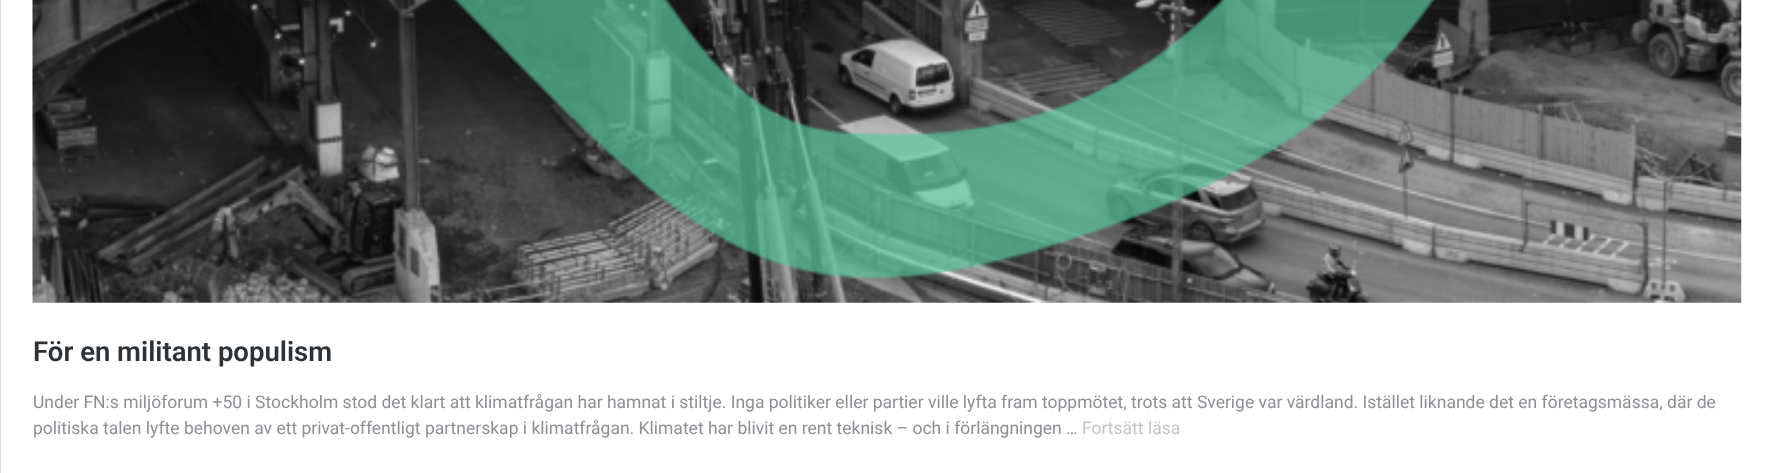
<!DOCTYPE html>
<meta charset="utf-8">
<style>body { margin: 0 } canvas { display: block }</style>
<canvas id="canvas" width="1773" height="473"></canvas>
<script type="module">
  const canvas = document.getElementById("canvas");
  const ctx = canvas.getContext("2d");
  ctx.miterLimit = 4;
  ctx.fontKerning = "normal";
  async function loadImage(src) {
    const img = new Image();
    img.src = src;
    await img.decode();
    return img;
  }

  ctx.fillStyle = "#ffffff";
  ctx.fillRect(0, 0, 1773, 473);
  ctx.strokeStyle = "#dcdcde";
  ctx.strokeRect(0.5, -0.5, 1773, 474);
  ctx.drawImage(await loadImage("img1.png"), 32, 0, 1710, 303);
  ctx.font = "600 27.5px Roboto";
  ctx.fillStyle = "#2c3338";
  ctx.fillText("För en militant populism", 33, 361);
  ctx.font = "17.5px Roboto";
  ctx.fillStyle = "#8c8f94";
  ctx.fillText("Under FN:s miljöforum +50 i Stockholm stod det klart att klimatfrågan har hamnat i stiltje. Inga politiker eller partier ville lyfta fram toppmötet, trots att Sverige var värdland. Istället liknande det en företagsmässa, där de", 33, 408);
  ctx.fillText("politiska talen lyfte behoven av ett privat-offentligt partnerskap i klimatfrågan. Klimatet har blivit en rent teknisk – och i förlängningen …", 33, 434);
  ctx.fillStyle = "#c3c4c7";
  ctx.fillText("Fortsätt läsa", 1082, 434);
</script>
